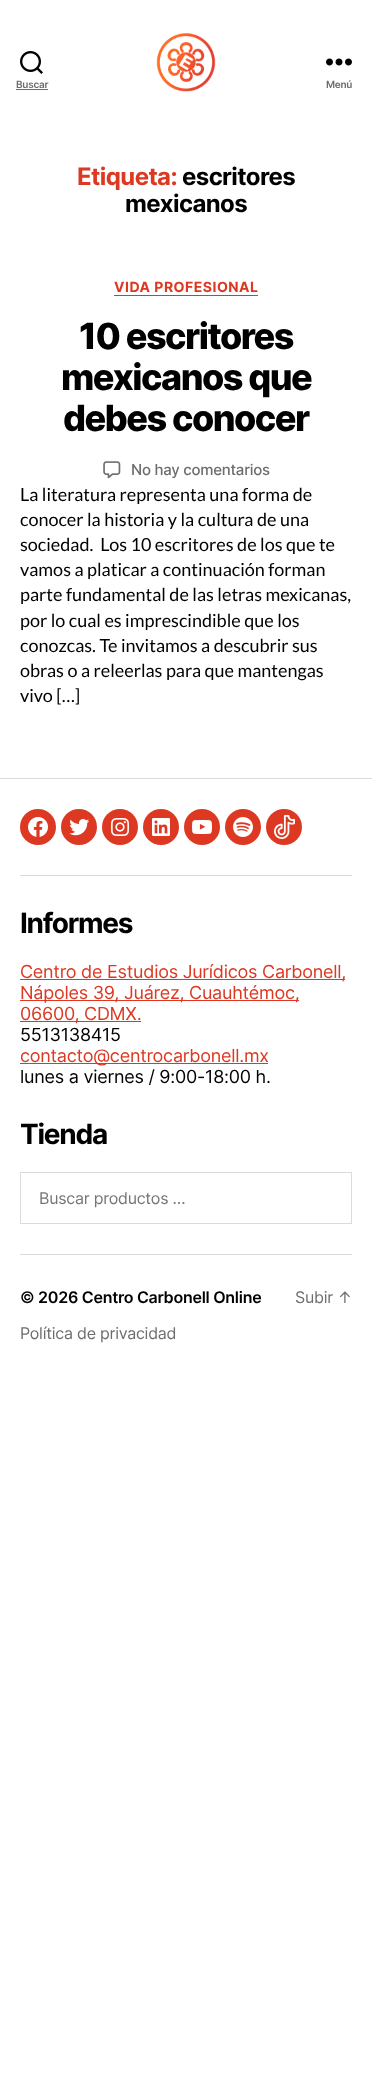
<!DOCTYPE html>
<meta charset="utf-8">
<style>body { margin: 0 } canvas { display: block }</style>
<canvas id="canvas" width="372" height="2080"></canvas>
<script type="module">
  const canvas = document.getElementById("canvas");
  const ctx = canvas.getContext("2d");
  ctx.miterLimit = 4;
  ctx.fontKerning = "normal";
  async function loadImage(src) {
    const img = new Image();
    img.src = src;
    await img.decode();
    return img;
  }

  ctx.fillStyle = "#ffffff";
  ctx.fillRect(0, 0, 372, 2080);
  ctx.drawImage(await loadImage("img1.png"), 20, 51, 23, 23);
  ctx.letterSpacing = "-0.25px";
  ctx.font = "600 10px Inter";
  ctx.fillStyle = "#6d6d6d";
  ctx.fillText("Buscar", 16, 88);
  ctx.fillRect(16, 89, 32, 1);
  ctx.drawImage(await loadImage("img2.png"), 156, 33, 60, 59);
  ctx.drawImage(await loadImage("img3.png"), 326, 58, 26, 8);
  ctx.fillText("Menú", 326, 88);
  ctx.letterSpacing = "-0.6px";
  ctx.font = "bold 24px Inter";
  ctx.fillStyle = "#dc3822";
  ctx.fillText("Etiqueta:", 77, 185);
  ctx.fillStyle = "#000000";
  ctx.fillText("escritores", 182, 185);
  ctx.fillText("mexicanos", 125, 212);
  ctx.fillStyle = "#dc3822";
  ctx.fillRect(114, 295, 144, 1);
  ctx.letterSpacing = "0.5px";
  ctx.font = "bold 14px Inter";
  ctx.fillText("VIDA PROFESIONAL", 114, 292);
  ctx.letterSpacing = "-1.5px";
  ctx.font = "800 36px Inter";
  ctx.fillStyle = "#000000";
  ctx.fillText("10 escritores", 79, 349);
  ctx.fillText("mexicanos que", 61, 390);
  ctx.fillText("debes conocer", 63, 431);
  ctx.drawImage(await loadImage("img4.png"), 103, 461, 18, 18);
  ctx.letterSpacing = "-0.25px";
  ctx.font = "500 15px Inter";
  ctx.fillStyle = "#6d6d6d";
  ctx.fillText("No hay comentarios", 131, 475);
  ctx.letterSpacing = "0px";
  ctx.font = "18px Lato";
  ctx.fillStyle = "#000000";
  ctx.fillText("La literatura representa una forma de", 20, 501);
  ctx.fillText("conocer la historia y la cultura de una", 20, 526);
  ctx.fillText("sociedad.  Los 10 escritores de los que te", 20, 551);
  ctx.fillText("vamos a platicar a continuación forman", 20, 576);
  ctx.fillText("parte fundamental de las letras mexicanas,", 20, 601);
  ctx.fillText("por lo cual es imprescindible que los", 20, 627);
  ctx.fillText("conozcas. Te invitamos a descubrir sus", 20, 652);
  ctx.fillText("obras o a releerlas para que mantengas", 20, 677);
  ctx.fillText("vivo […]", 20, 702);
  ctx.fillStyle = "#dbdbdb";
  ctx.fillRect(0, 778, 372, 1);
  ctx.fillRect(20, 875, 332, 1);
  ctx.fillStyle = "#dc3822";
  ctx.beginPath();
  ctx.arc(38, 827, 18, 0, Math.PI * 2);
  ctx.fill();
  ctx.drawImage(await loadImage("img5.png"), 28, 817, 20, 20);
  ctx.beginPath();
  ctx.arc(79, 827, 18, 0, Math.PI * 2);
  ctx.fill();
  ctx.drawImage(await loadImage("img6.png"), 69, 819, 20, 17);
  ctx.beginPath();
  ctx.arc(120, 827, 18, 0, Math.PI * 2);
  ctx.fill();
  ctx.drawImage(await loadImage("img7.png"), 111, 818, 18, 18);
  ctx.beginPath();
  ctx.arc(161, 827, 18, 0, Math.PI * 2);
  ctx.fill();
  ctx.drawImage(await loadImage("img8.png"), 152, 818, 18, 18);
  ctx.beginPath();
  ctx.arc(202, 827, 18, 0, Math.PI * 2);
  ctx.fill();
  ctx.drawImage(await loadImage("img9.png"), 192, 820, 20, 14);
  ctx.beginPath();
  ctx.arc(243, 827, 18, 0, Math.PI * 2);
  ctx.fill();
  ctx.drawImage(await loadImage("img10.png"), 233, 817, 20, 20);
  ctx.beginPath();
  ctx.arc(284, 827, 18, 0, Math.PI * 2);
  ctx.fill();
  ctx.drawImage(await loadImage("img11.png"), 274, 815, 21, 24);
  ctx.fillStyle = "#dbdbdb";
  ctx.fillRect(20, 1254, 332, 1);
  ctx.letterSpacing = "-1.25px";
  ctx.font = "bold 28px Inter";
  ctx.fillStyle = "#000000";
  ctx.fillText("Informes", 20, 933);
  ctx.fillStyle = "#dc3822";
  ctx.fillRect(20, 979, 325, 1);
  ctx.letterSpacing = "-0.25px";
  ctx.font = "18px Inter";
  ctx.fillText("Centro de Estudios Jurídicos Carbonell,", 20, 978);
  ctx.fillRect(20, 1000, 279, 1);
  ctx.fillText("Nápoles 39, Juárez, Cuauhtémoc,", 20, 999);
  ctx.fillRect(20, 1021, 121, 1);
  ctx.fillText("06600, CDMX.", 20, 1020);
  ctx.fillStyle = "#000000";
  ctx.fillText("5513138415", 20, 1041);
  ctx.fillStyle = "#dc3822";
  ctx.fillRect(20, 1063, 248, 1);
  ctx.fillText("contacto@centrocarbonell.mx", 20, 1062);
  ctx.fillStyle = "#000000";
  ctx.fillText("lunes a viernes / 9:00-18:00 h.", 20, 1083);
  ctx.letterSpacing = "-1.25px";
  ctx.font = "bold 28px Inter";
  ctx.fillText("Tienda", 20, 1144);
  ctx.strokeStyle = "#dbdbdb";
  ctx.strokeRect(20.5, 1172.5, 331, 51);
  ctx.letterSpacing = "-0.25px";
  ctx.font = "16px Inter";
  ctx.fillStyle = "#757575";
  ctx.fillText("Buscar productos …", 39, 1204);
  ctx.font = "600 16px Inter";
  ctx.fillStyle = "#000000";
  ctx.fillText("© 2026 Centro Carbonell Online", 20, 1303);
  ctx.font = "16px Inter";
  ctx.fillStyle = "#6d6d6d";
  ctx.fillText("Política de privacidad", 20, 1339);
  ctx.fillText("Subir ↑", 295, 1303);
</script>
